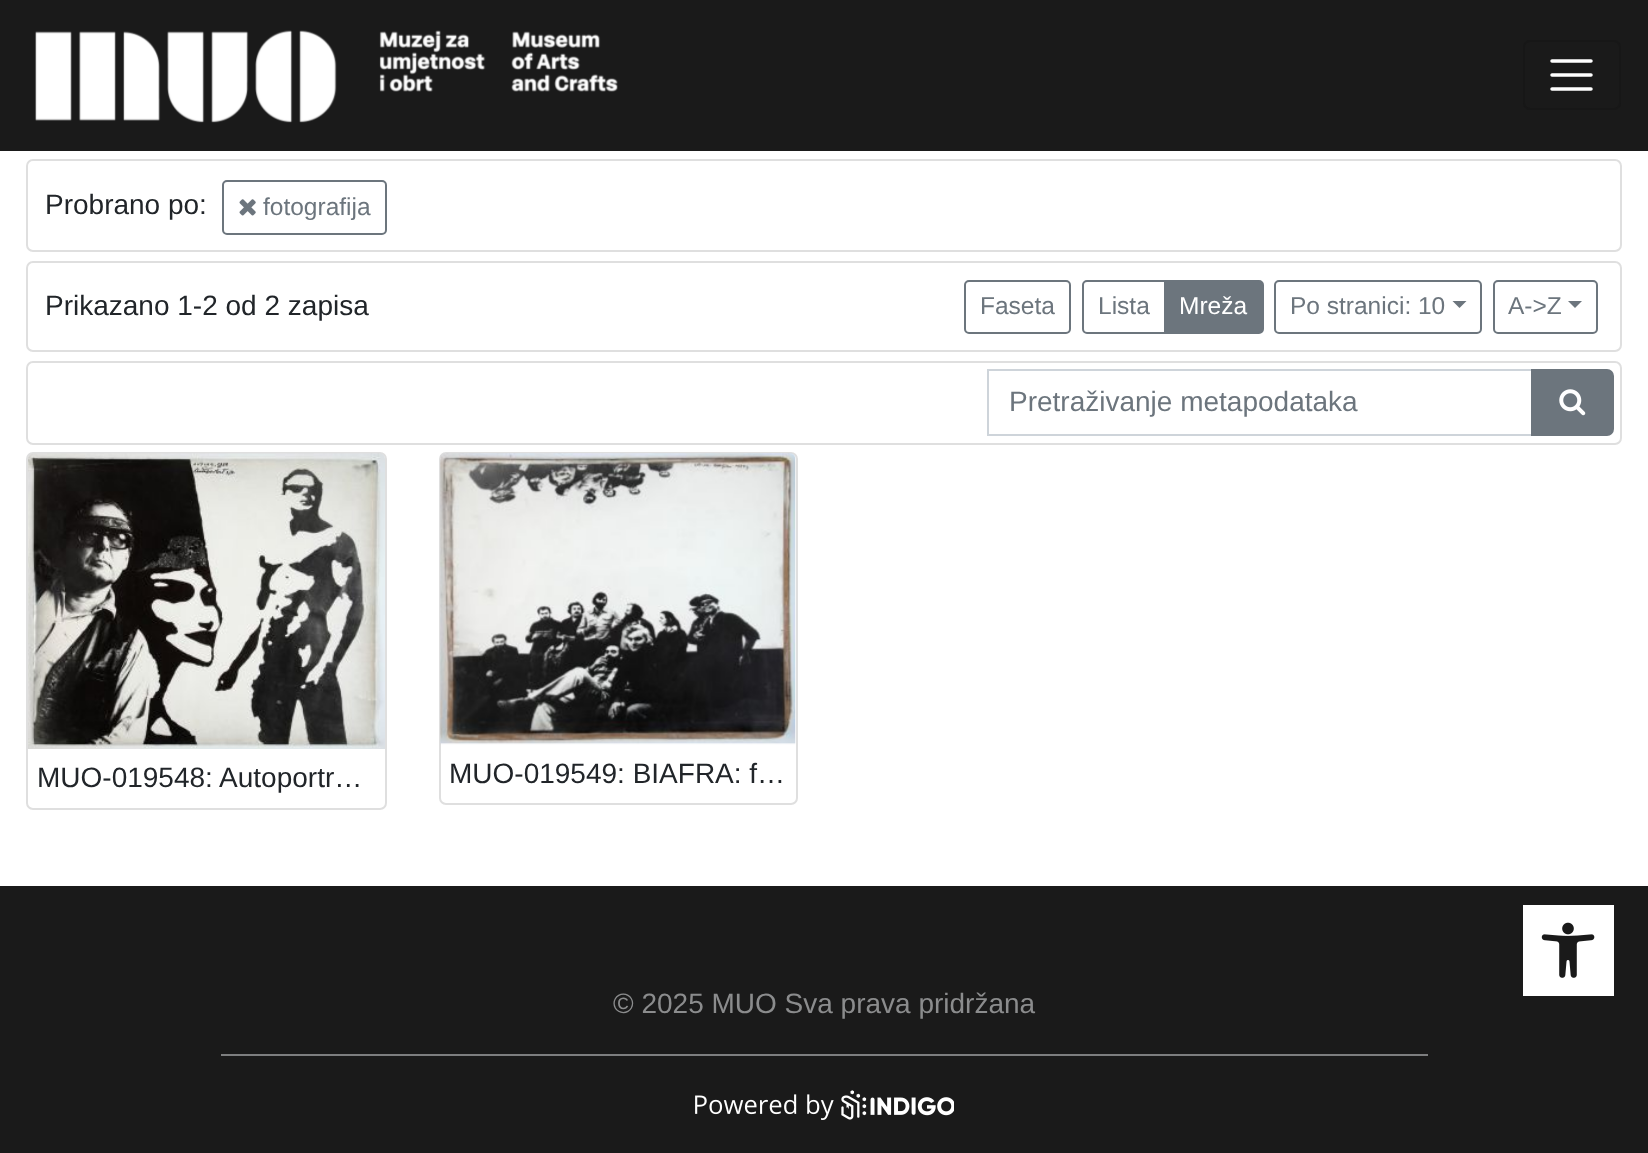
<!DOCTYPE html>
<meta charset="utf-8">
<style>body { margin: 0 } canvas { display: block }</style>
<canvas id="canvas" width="1648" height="1153"></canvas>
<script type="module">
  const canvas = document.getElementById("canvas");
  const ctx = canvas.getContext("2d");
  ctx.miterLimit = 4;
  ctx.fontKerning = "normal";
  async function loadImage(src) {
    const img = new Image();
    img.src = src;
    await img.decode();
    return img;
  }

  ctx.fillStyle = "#ffffff";
  ctx.fillRect(0, 0, 1648, 1153);
  ctx.fillStyle = "#1a1a1a";
  ctx.fillRect(0, 0, 1648, 151);
  ctx.drawImage(await loadImage("img1.png"), 35, 30, 583, 93);
  ctx.beginPath();
  ctx.roundRect(1524, 41, 96, 68, 6);
  ctx.strokeStyle = "#171717";
  ctx.lineWidth = 2;
  ctx.stroke();
  ctx.beginPath();
  ctx.moveTo(1552, 61);
  ctx.lineTo(1591, 61);
  ctx.moveTo(1552, 75);
  ctx.lineTo(1591, 75);
  ctx.moveTo(1552, 89);
  ctx.lineTo(1591, 89);
  ctx.strokeStyle = "#ffffff";
  ctx.lineWidth = 3.5;
  ctx.lineCap = "round";
  ctx.stroke();
  ctx.beginPath();
  ctx.roundRect(27, 160, 1594, 91, 6);
  ctx.strokeStyle = "#dfdfdf";
  ctx.lineWidth = 2;
  ctx.stroke();
  ctx.font = "28px Liberation Sans";
  ctx.fillStyle = "#212529";
  ctx.fillText("Probrano po:", 45, 214);
  ctx.beginPath();
  ctx.roundRect(223, 181, 163, 53, 4);
  ctx.strokeStyle = "#6c757d";
  ctx.stroke();
  ctx.drawImage(await loadImage("img2.png"), 239, 199, 17, 17);
  ctx.font = "24.5px Liberation Sans";
  ctx.fillStyle = "#6c757d";
  ctx.fillText("fotografija", 263, 215);
  ctx.beginPath();
  ctx.roundRect(27, 262, 1594, 89, 6);
  ctx.strokeStyle = "#dfdfdf";
  ctx.stroke();
  ctx.font = "28px Liberation Sans";
  ctx.fillStyle = "#212529";
  ctx.fillText("Prikazano 1-2 od 2 zapisa", 45, 315);
  ctx.beginPath();
  ctx.roundRect(965, 281, 105, 52, 4);
  ctx.strokeStyle = "#6c757d";
  ctx.stroke();
  ctx.font = "24.5px Liberation Sans";
  ctx.fillStyle = "#6c757d";
  ctx.fillText("Faseta", 980, 314);
  ctx.beginPath();
  ctx.roundRect(1083, 281, 82, 52, [4, 0, 0, 4]);
  ctx.stroke();
  ctx.fillText("Lista", 1098, 314);
  ctx.beginPath();
  ctx.roundRect(1165, 281, 98, 52, [0, 4, 4, 0]);
  ctx.fill();
  ctx.stroke();
  ctx.fillStyle = "#ffffff";
  ctx.fillText("Mreža", 1179, 314);
  ctx.beginPath();
  ctx.roundRect(1275, 281, 206, 52, 4);
  ctx.stroke();
  ctx.fillStyle = "#6c757d";
  ctx.fillText("Po stranici: 10", 1290, 314);
  ctx.beginPath();
  ctx.moveTo(1452.5, 301);
  ctx.lineTo(1466.5, 301);
  ctx.lineTo(1459.5, 308);
  ctx.closePath();
  ctx.fill();
  ctx.beginPath();
  ctx.roundRect(1494, 281, 103, 52, 4);
  ctx.stroke();
  ctx.fillText("A->Z", 1508, 314);
  ctx.beginPath();
  ctx.moveTo(1568, 301);
  ctx.lineTo(1582, 301);
  ctx.lineTo(1575, 308);
  ctx.closePath();
  ctx.fill();
  ctx.beginPath();
  ctx.roundRect(27, 362, 1594, 82, 6);
  ctx.strokeStyle = "#dfdfdf";
  ctx.stroke();
  ctx.strokeStyle = "#ced4da";
  ctx.strokeRect(988, 370, 544, 65);
  ctx.font = "28px Liberation Sans";
  ctx.fillText("Pretraživanje metapodataka", 1009, 411);
  ctx.beginPath();
  ctx.roundRect(1532, 370, 81, 65, [0, 6, 6, 0]);
  ctx.fill();
  ctx.strokeStyle = "#6c757d";
  ctx.stroke();
  ctx.drawImage(await loadImage("img3.png"), 1559, 389, 27, 27);
  ctx.beginPath();
  ctx.roundRect(27, 453, 359, 356, 6);
  ctx.strokeStyle = "#dfdfdf";
  ctx.stroke();
  ctx.drawImage(await loadImage("img4.png"), 28, 453, 357, 296);
  ctx.fillStyle = "#212529";
  ctx.fillText("MUO-019548: Autoportr…", 37, 787);
  ctx.beginPath();
  ctx.roundRect(440, 453, 357, 351, 6);
  ctx.stroke();
  ctx.drawImage(await loadImage("img5.png"), 440, 453, 356, 292);
  ctx.fillText("MUO-019549: BIAFRA: f…", 449, 783);
  ctx.fillStyle = "#1a1a1a";
  ctx.fillRect(0, 886, 1648, 267);
  ctx.fillStyle = "#ffffff";
  ctx.fillRect(1523, 905, 91, 91);
  ctx.drawImage(await loadImage("img6.png"), 1541, 922, 54, 56);
  ctx.fillStyle = "#8b8c8d";
  ctx.fillText("© 2025 MUO Sva prava pridržana", 613, 1013);
  ctx.fillStyle = "#7d7e7f";
  ctx.fillRect(221, 1054, 1207, 2);
  ctx.drawImage(await loadImage("img7.png"), 695, 1090, 259, 30);
</script>
